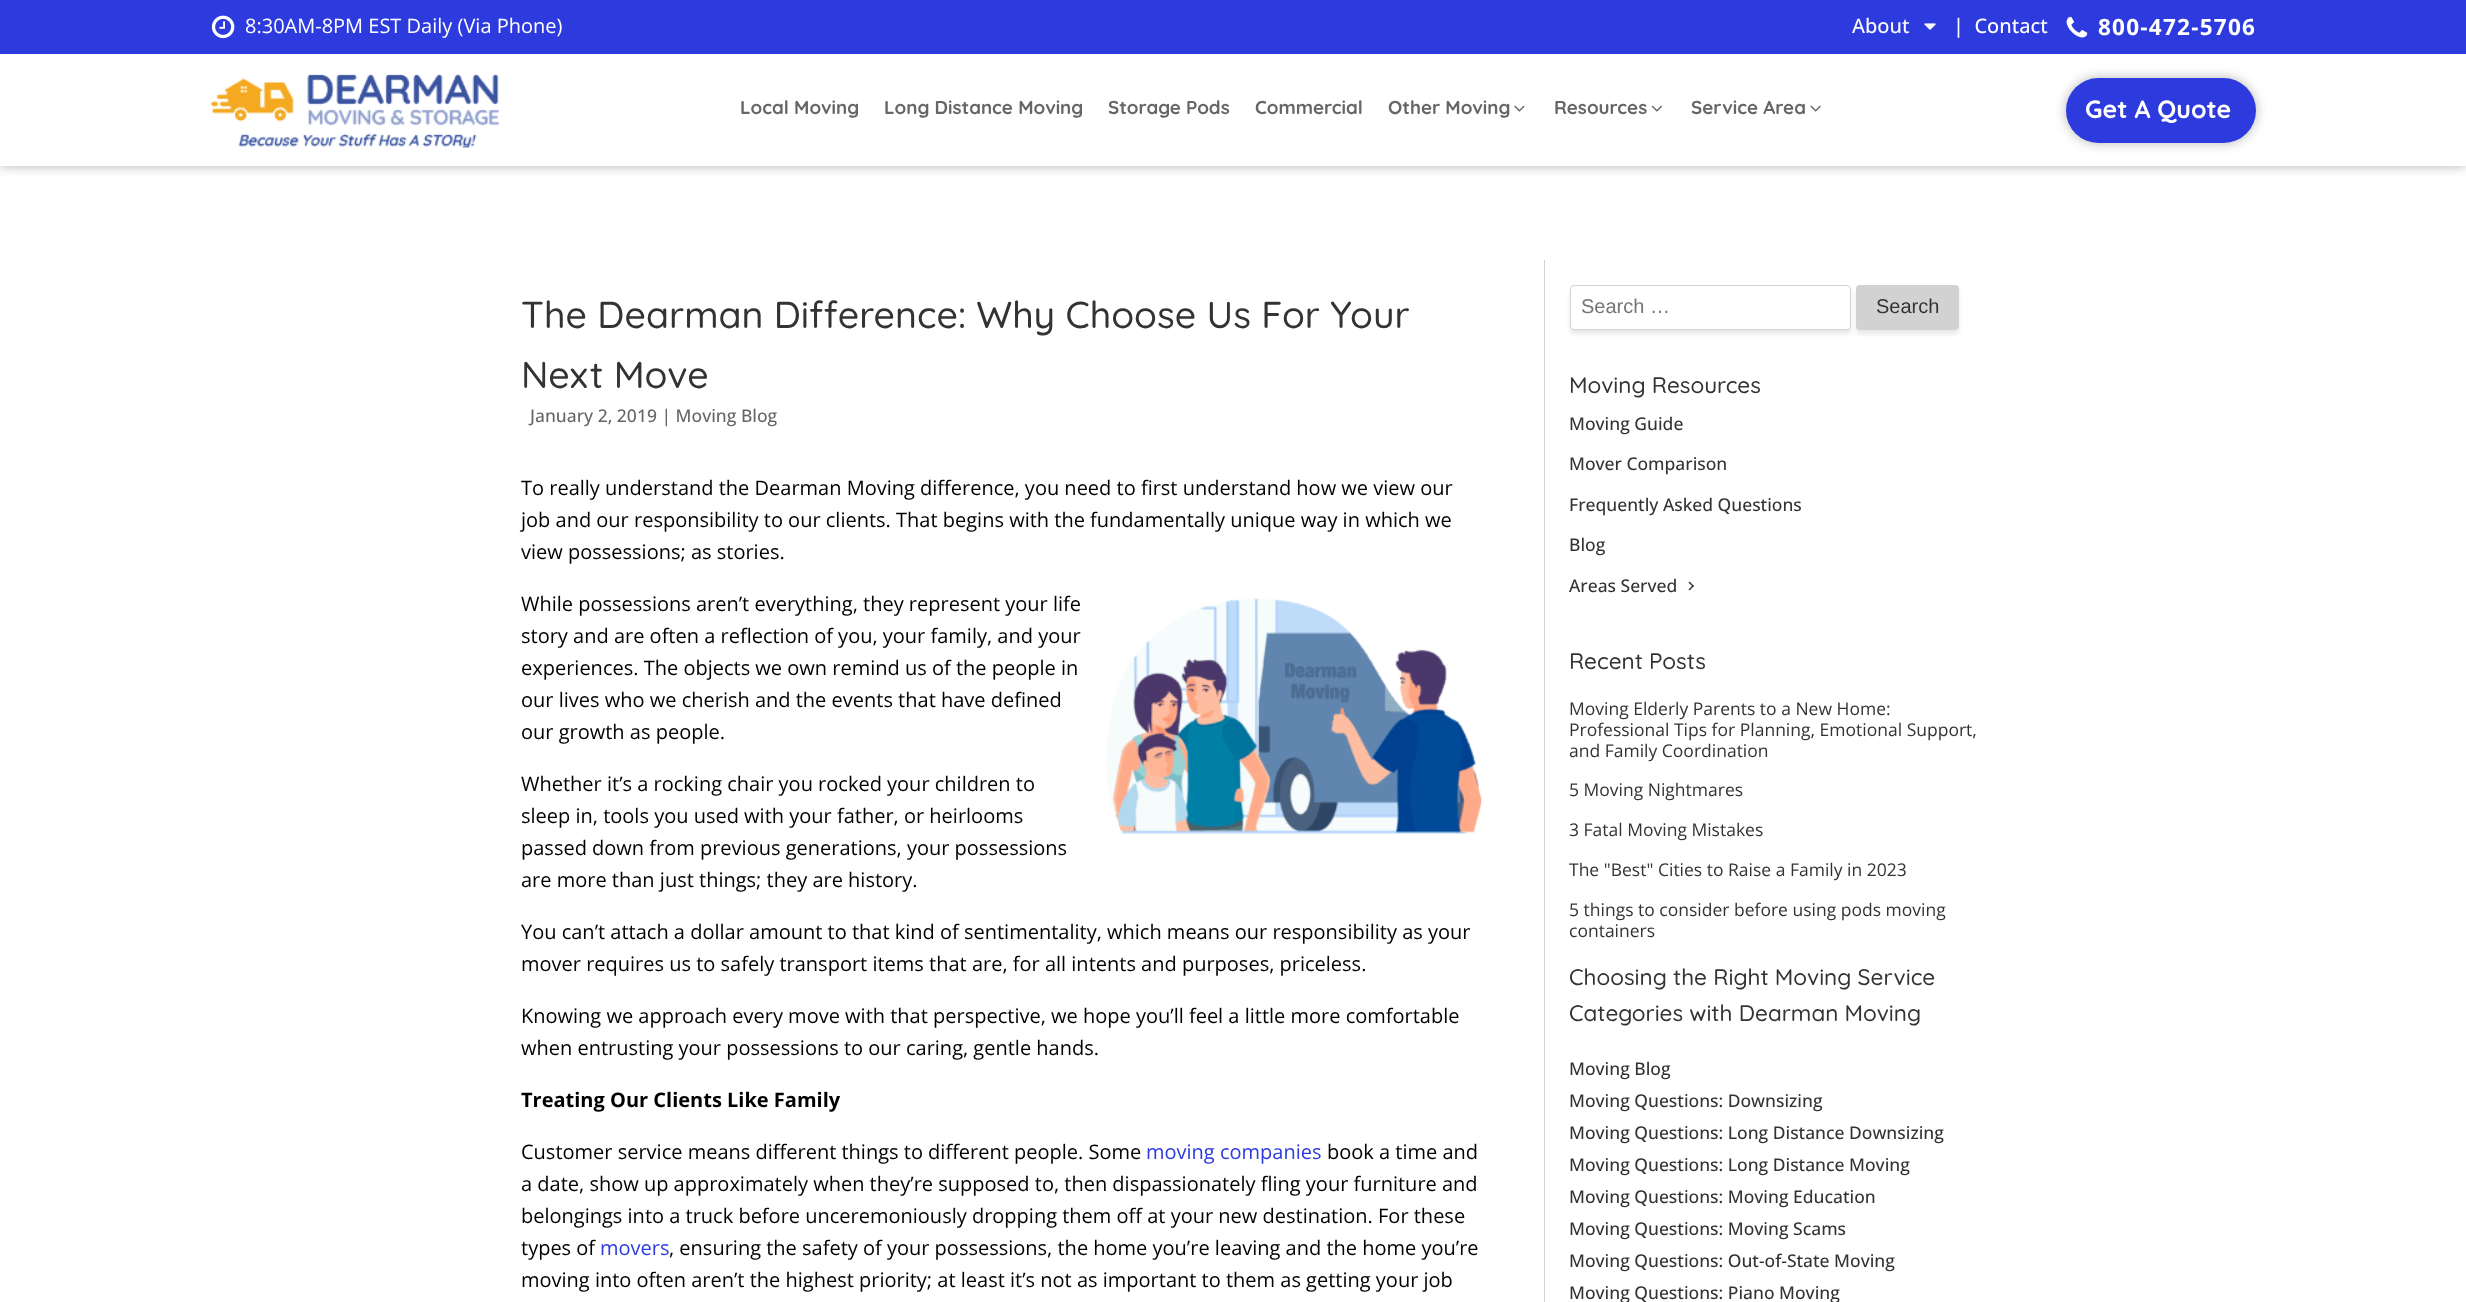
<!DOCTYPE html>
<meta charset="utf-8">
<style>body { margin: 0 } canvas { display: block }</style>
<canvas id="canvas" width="2466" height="1302"></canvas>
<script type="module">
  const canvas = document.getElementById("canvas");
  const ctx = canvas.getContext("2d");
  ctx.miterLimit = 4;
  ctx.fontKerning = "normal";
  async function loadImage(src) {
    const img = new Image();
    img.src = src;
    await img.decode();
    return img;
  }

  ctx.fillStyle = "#ffffff";
  ctx.fillRect(0, 0, 2466, 1302);
  ctx.fillStyle = "rgba(0, 0, 0, 0.3)";
  ctx.filter = "blur(6px)";
  ctx.beginPath();
  ctx.rect(0, 0, 2466, 166);
  ctx.fill();
  ctx.filter = "none";
  ctx.fillStyle = "#2d3bde";
  ctx.fillRect(0, 0, 2466, 54);
  ctx.drawImage(await loadImage("img1.png"), 211, 15, 24, 24);
  ctx.font = "20px Open Sans";
  ctx.fillStyle = "#ffffff";
  ctx.fillText("8:30AM-8PM EST Daily (Via Phone)", 245, 33);
  ctx.font = "500 20px Open Sans";
  ctx.fillStyle = "#f9f9fa";
  ctx.fillText("About", 1852, 33);
  ctx.drawImage(await loadImage("img2.png"), 1924, 23, 12, 7);
  ctx.fillStyle = "#ffffff";
  ctx.fillText("|  Contact", 1953, 33);
  ctx.drawImage(await loadImage("img3.png"), 2066, 16, 22, 22);
  ctx.letterSpacing = "1.25px";
  ctx.font = "bold 22.5px Open Sans";
  ctx.fillText("800-472-5706", 2098, 35);
  ctx.fillRect(0, 54, 2466, 112);
  ctx.drawImage(await loadImage("img4.png"), 211, 74, 288, 74);
  ctx.letterSpacing = "0px";
  ctx.font = "bold 18.75px Quicksand";
  ctx.fillStyle = "#666666";
  ctx.fillText("Local Moving", 740, 114);
  ctx.fillText("Long Distance Moving", 884, 114);
  ctx.fillText("Storage Pods", 1108, 114);
  ctx.fillText("Commercial", 1255, 114);
  ctx.fillText("Other Moving", 1388, 114);
  ctx.drawImage(await loadImage("img5.png"), 1514, 105, 11, 7);
  ctx.fillText("Resources", 1554, 114);
  ctx.drawImage(await loadImage("img6.png"), 1651, 105, 11, 7);
  ctx.fillText("Service Area", 1691, 114);
  ctx.drawImage(await loadImage("img7.png"), 1810, 105, 11, 7);
  ctx.fillStyle = "rgba(0, 0, 0, 0.29)";
  ctx.filter = "blur(6px)";
  ctx.beginPath();
  ctx.roundRect(2066, 78, 190, 65, 32.5);
  ctx.fill();
  ctx.filter = "none";
  ctx.fillStyle = "#2d3bde";
  ctx.beginPath();
  ctx.roundRect(2066, 78, 190, 65, 32.5);
  ctx.fill();
  ctx.font = "bold 25px Quicksand";
  ctx.fillStyle = "#ffffff";
  ctx.fillText("Get A Quote", 2085, 118);
  ctx.font = "500 37.5px Quicksand";
  ctx.fillStyle = "#333333";
  ctx.fillText("The Dearman Difference: Why Choose Us For Your", 521, 328);
  ctx.fillText("Next Move", 521, 388);
  ctx.font = "500 17.5px Open Sans";
  ctx.fillStyle = "#666666";
  ctx.fillText("January 2, 2019 | Moving Blog", 530, 422);
  ctx.font = "20px Open Sans";
  ctx.fillStyle = "#000000";
  ctx.fillText("To really understand the Dearman Moving difference, you need to first understand how we view our", 521, 495);
  ctx.fillText("job and our responsibility to our clients. That begins with the fundamentally unique way in which we", 521, 527);
  ctx.fillText("view possessions; as stories.", 521, 559);
  ctx.fillText("While possessions aren’t everything, they represent your life", 521, 611);
  ctx.fillText("story and are often a reflection of you, your family, and your", 521, 643);
  ctx.fillText("experiences. The objects we own remind us of the people in", 521, 675);
  ctx.fillText("our lives who we cherish and the events that have defined", 521, 707);
  ctx.fillText("our growth as people.", 521, 739);
  ctx.drawImage(await loadImage("img8.png"), 1106, 598, 376, 236);
  ctx.fillText("Whether it’s a rocking chair you rocked your children to", 521, 791);
  ctx.fillText("sleep in, tools you used with your father, or heirlooms", 521, 823);
  ctx.fillText("passed down from previous generations, your possessions", 521, 855);
  ctx.fillText("are more than just things; they are history.", 521, 887);
  ctx.fillText("You can’t attach a dollar amount to that kind of sentimentality, which means our responsibility as your", 521, 939);
  ctx.fillText("mover requires us to safely transport items that are, for all intents and purposes, priceless.", 521, 971);
  ctx.fillText("Knowing we approach every move with that perspective, we hope you’ll feel a little more comfortable", 521, 1023);
  ctx.fillText("when entrusting your possessions to our caring, gentle hands.", 521, 1055);
  ctx.font = "bold 20px Open Sans";
  ctx.fillText("Treating Our Clients Like Family", 521, 1107);
  ctx.font = "20px Open Sans";
  ctx.fillText("Customer service means different things to different people. Some", 521, 1159);
  ctx.fillStyle = "#2d3bde";
  ctx.fillText("moving companies", 1146, 1159);
  ctx.fillStyle = "#000000";
  ctx.fillText("book a time and", 1327, 1159);
  ctx.fillText("a date, show up approximately when they’re supposed to, then dispassionately fling your furniture and", 521, 1191);
  ctx.fillText("belongings into a truck before unceremoniously dropping them off at your new destination. For these", 521, 1223);
  ctx.fillText("types of", 521, 1255);
  ctx.fillStyle = "#2d3bde";
  ctx.fillText("movers", 600, 1255);
  ctx.fillStyle = "#000000";
  ctx.fillText(", ensuring the safety of your possessions, the home you’re leaving and the home you’re", 669, 1255);
  ctx.fillText("moving into often aren’t the highest priority; at least it’s not as important to them as getting your job", 521, 1287);
  ctx.fillStyle = "#d2d2d2";
  ctx.fillRect(1544, 260, 1, 1042);
  ctx.fillStyle = "rgba(0, 0, 0, 0.09)";
  ctx.filter = "blur(2px)";
  ctx.beginPath();
  ctx.roundRect(1570, 289, 281, 45, 4);
  ctx.fill();
  ctx.filter = "none";
  ctx.fillStyle = "#ffffff";
  ctx.beginPath();
  ctx.roundRect(1570.5, 285.5, 280, 44, 3.5);
  ctx.fill();
  ctx.strokeStyle = "#d2d2d2";
  ctx.stroke();
  ctx.font = "20px Liberation Sans";
  ctx.fillStyle = "#757575";
  ctx.fillText("Search …", 1581, 313);
  ctx.fillStyle = "rgba(0, 0, 0, 0.09)";
  ctx.filter = "blur(2px)";
  ctx.beginPath();
  ctx.roundRect(1856, 289, 103, 45, 4);
  ctx.fill();
  ctx.filter = "none";
  ctx.fillStyle = "#d2d2d2";
  ctx.beginPath();
  ctx.roundRect(1856, 285, 103, 45, 4);
  ctx.fill();
  ctx.fillStyle = "#333333";
  ctx.fillText("Search", 1876, 313);
  ctx.font = "500 22.5px Quicksand";
  ctx.fillText("Moving Resources", 1569, 393);
  ctx.font = "500 17.5px Open Sans";
  ctx.fillText("Moving Guide", 1569, 430);
  ctx.fillText("Mover Comparison", 1569, 470);
  ctx.fillText("Frequently Asked Questions", 1569, 511);
  ctx.fillText("Blog", 1569, 551);
  ctx.fillText("Areas Served", 1569, 592);
  ctx.beginPath();
  ctx.moveTo(1689.5, 581.5);
  ctx.lineTo(1694, 586);
  ctx.lineTo(1693, 587);
  ctx.lineTo(1688.5, 582.5);
  ctx.closePath();
  ctx.fill();
  ctx.beginPath();
  ctx.moveTo(1693, 585);
  ctx.lineTo(1694, 586);
  ctx.lineTo(1689.5, 590.5);
  ctx.lineTo(1688.5, 589.5);
  ctx.closePath();
  ctx.fill();
  ctx.font = "500 22.5px Quicksand";
  ctx.fillText("Recent Posts", 1569, 669);
  ctx.font = "17.5px Open Sans";
  ctx.fillText("Moving Elderly Parents to a New Home:", 1569, 715);
  ctx.fillText("Professional Tips for Planning, Emotional Support,", 1569, 736);
  ctx.fillText("and Family Coordination", 1569, 757);
  ctx.fillText("5 Moving Nightmares", 1569, 796);
  ctx.fillText("3 Fatal Moving Mistakes", 1569, 836);
  ctx.fillText("The \"Best\" Cities to Raise a Family in 2023", 1569, 876);
  ctx.fillText("5 things to consider before using pods moving", 1569, 916);
  ctx.fillText("containers", 1569, 937);
  ctx.font = "500 22.5px Quicksand";
  ctx.fillText("Choosing the Right Moving Service", 1569, 985);
  ctx.fillText("Categories with Dearman Moving", 1569, 1021);
  ctx.font = "500 17.5px Open Sans";
  ctx.fillText("Moving Blog", 1569, 1075);
  ctx.fillText("Moving Questions: Downsizing", 1569, 1107);
  ctx.fillText("Moving Questions: Long Distance Downsizing", 1569, 1139);
  ctx.fillText("Moving Questions: Long Distance Moving", 1569, 1171);
  ctx.fillText("Moving Questions: Moving Education", 1569, 1203);
  ctx.fillText("Moving Questions: Moving Scams", 1569, 1235);
  ctx.fillText("Moving Questions: Out-of-State Moving", 1569, 1267);
  ctx.fillText("Moving Questions: Piano Moving", 1569, 1299);
</script>
